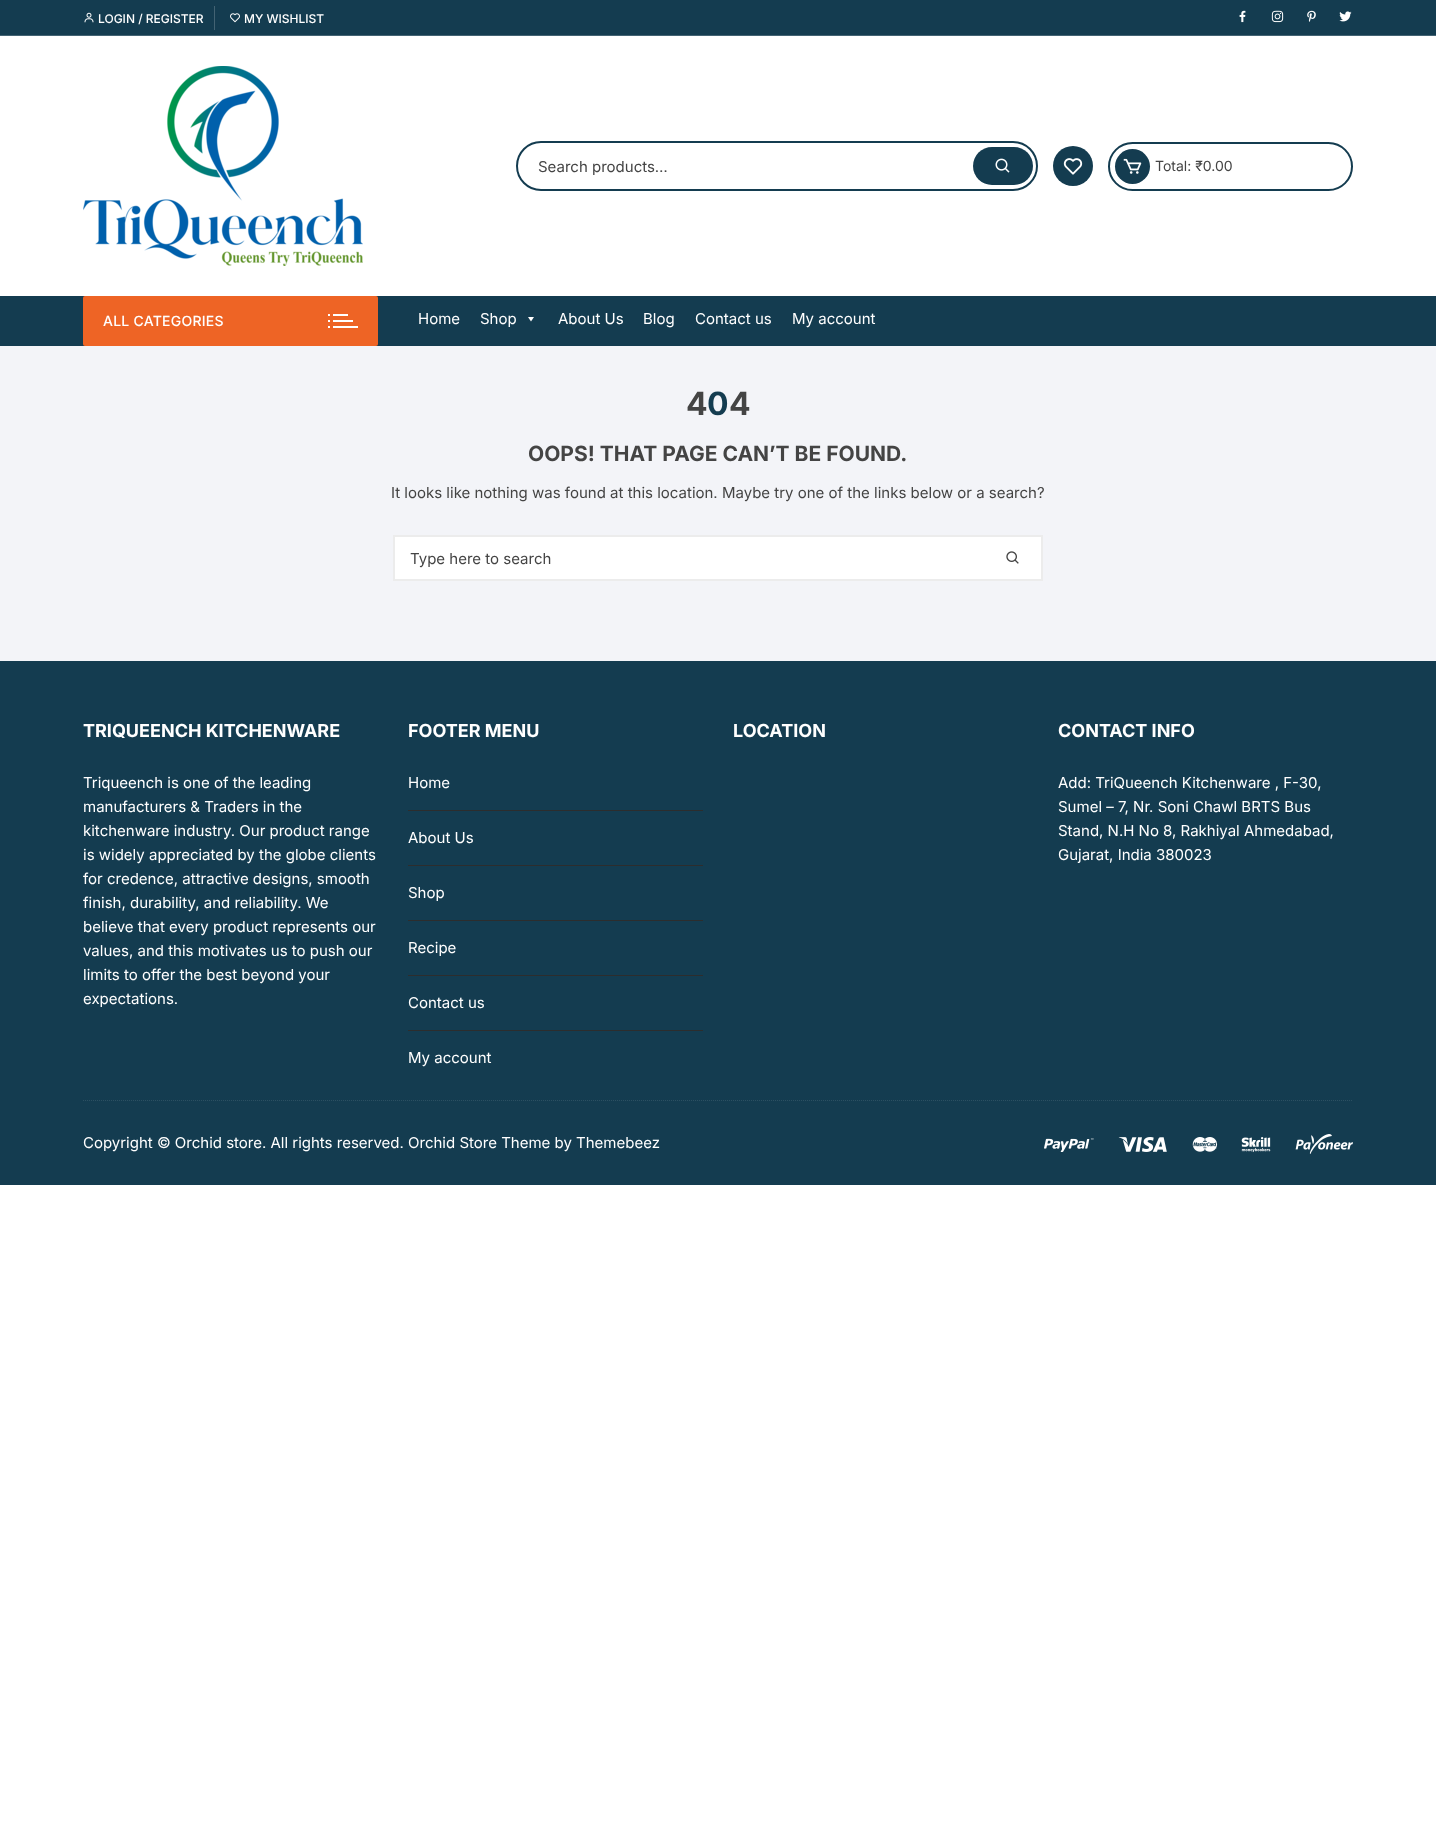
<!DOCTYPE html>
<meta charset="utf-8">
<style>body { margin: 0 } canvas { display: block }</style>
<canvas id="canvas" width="1436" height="1842"></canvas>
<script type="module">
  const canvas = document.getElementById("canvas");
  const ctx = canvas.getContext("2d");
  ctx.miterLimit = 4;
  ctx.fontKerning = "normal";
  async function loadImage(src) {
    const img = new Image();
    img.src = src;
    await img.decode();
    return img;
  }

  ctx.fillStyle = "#ffffff";
  ctx.fillRect(0, 0, 1436, 1842);
  ctx.fillStyle = "#f3f4f8";
  ctx.fillRect(0, 346, 1436, 315);
  ctx.fillStyle = "#143c50";
  ctx.fillRect(0, 0, 1436, 35);
  ctx.fillStyle = "#436373";
  ctx.fillRect(0, 35, 1436, 1);
  ctx.fillRect(214, 6, 1, 24);
  ctx.drawImage(await loadImage("img1.png"), 84, 12, 10, 11);
  ctx.font = "500 12px Inter";
  ctx.fillStyle = "#ffffff";
  ctx.fillText("LOGIN / REGISTER", 98, 23);
  ctx.drawImage(await loadImage("img2.png"), 230, 13, 10, 10);
  ctx.fillText("MY WISHLIST", 244, 23);
  ctx.drawImage(await loadImage("img3.png"), 1239, 10, 7, 13);
  ctx.drawImage(await loadImage("img4.png"), 1271, 10, 13, 13);
  ctx.drawImage(await loadImage("img5.png"), 1307, 10, 9, 12);
  ctx.drawImage(await loadImage("img6.png"), 1339, 11, 13, 11);
  ctx.drawImage(await loadImage("img7.png"), 83, 66, 280, 200);
  ctx.beginPath();
  ctx.roundRect(517, 142, 520, 48, 24);
  ctx.strokeStyle = "#143c50";
  ctx.lineWidth = 2;
  ctx.stroke();
  ctx.font = "15px Inter";
  ctx.fillStyle = "#444444";
  ctx.fillText("Search products…", 538, 172);
  ctx.fillStyle = "#143c50";
  ctx.beginPath();
  ctx.roundRect(973, 147, 60, 38, 19);
  ctx.fill();
  ctx.drawImage(await loadImage("img8.png"), 995, 158, 15, 15);
  ctx.beginPath();
  ctx.arc(1073, 166, 20, 0, Math.PI * 2);
  ctx.fill();
  ctx.drawImage(await loadImage("img9.png"), 1063, 158, 20, 17);
  ctx.beginPath();
  ctx.roundRect(1109, 143, 243, 47, 23.5);
  ctx.stroke();
  ctx.beginPath();
  ctx.arc(1132.5, 166.5, 17.5, 0, Math.PI * 2);
  ctx.fill();
  ctx.drawImage(await loadImage("img10.png"), 1123, 158, 19, 16);
  ctx.font = "14px Inter";
  ctx.fillStyle = "#444444";
  ctx.fillText("Total: ₹0.00", 1155, 171);
  ctx.fillStyle = "#143c50";
  ctx.fillRect(0, 296, 1436, 50);
  ctx.fillStyle = "#ee6425";
  ctx.beginPath();
  ctx.roundRect(83, 296, 295, 50, 2);
  ctx.fill();
  ctx.letterSpacing = "0.25px";
  ctx.font = "500 14px Inter";
  ctx.fillStyle = "#ffffff";
  ctx.fillText("ALL CATEGORIES", 103, 326);
  ctx.fillRect(333, 314, 15, 2);
  ctx.fillRect(328, 314, 2, 2);
  ctx.fillRect(333, 320, 20, 2);
  ctx.fillRect(328, 320, 2, 2);
  ctx.fillRect(333, 326, 25, 2);
  ctx.fillRect(328, 326, 2, 2);
  ctx.letterSpacing = "0px";
  ctx.font = "15px Inter";
  ctx.fillText("Home", 418, 324);
  ctx.fillText("Shop", 480, 324);
  ctx.beginPath();
  ctx.moveTo(534, 317);
  ctx.lineTo(531, 321.5);
  ctx.lineTo(528, 317);
  ctx.closePath();
  ctx.fill();
  ctx.fillText("About Us", 558, 324);
  ctx.fillText("Blog", 643, 324);
  ctx.fillText("Contact us", 695, 324);
  ctx.fillText("My account", 792, 324);
  ctx.font = "bold 32px Inter";
  ctx.fillStyle = "#444444";
  ctx.fillText("4", 686, 415);
  ctx.fillStyle = "#143c50";
  ctx.fillText("0", 707, 415);
  ctx.fillStyle = "#444444";
  ctx.fillText("4", 729, 415);
  ctx.font = "bold 21px Inter";
  ctx.fillText("OOPS! THAT PAGE CAN’T BE FOUND.", 528, 461);
  ctx.font = "15px Inter";
  ctx.fillText("It looks like nothing was found at this location. Maybe try one of the links below or a search?", 391, 498);
  ctx.fillStyle = "#ffffff";
  ctx.beginPath();
  ctx.rect(394, 536, 648, 44);
  ctx.fill();
  ctx.strokeStyle = "#ececec";
  ctx.stroke();
  ctx.fillStyle = "#444444";
  ctx.fillText("Type here to search", 410, 564);
  ctx.drawImage(await loadImage("img11.png"), 1006, 551, 13, 13);
  ctx.fillStyle = "#143c50";
  ctx.fillRect(0, 661, 1436, 524);
  ctx.beginPath();
  ctx.moveTo(83, 1100.5);
  ctx.lineTo(1353, 1100.5);
  ctx.strokeStyle = "#2c5062";
  ctx.lineWidth = 1;
  ctx.setLineDash([1, 1]);
  ctx.stroke();
  ctx.font = "bold 18px Inter";
  ctx.fillStyle = "#ffffff";
  ctx.fillText("TRIQUEENCH KITCHENWARE", 83, 737);
  ctx.font = "15px Inter";
  ctx.fillText("Triqueench is one of the leading", 83, 788);
  ctx.fillText("manufacturers & Traders in the", 83, 812);
  ctx.fillText("kitchenware industry. Our product range", 83, 836);
  ctx.fillText("is widely appreciated by the globe clients", 83, 860);
  ctx.fillText("for credence, attractive designs, smooth", 83, 884);
  ctx.fillText("finish, durability, and reliability. We", 83, 908);
  ctx.fillText("believe that every product represents our", 83, 932);
  ctx.fillText("values, and this motivates us to push our", 83, 956);
  ctx.fillText("limits to offer the best beyond your", 83, 980);
  ctx.fillText("expectations.", 83, 1004);
  ctx.font = "bold 18px Inter";
  ctx.fillText("FOOTER MENU", 408, 737);
  ctx.fillStyle = "#2d2d2d";
  ctx.fillRect(408, 810, 295, 1);
  ctx.font = "15px Inter";
  ctx.fillStyle = "#ffffff";
  ctx.fillText("Home", 408, 788);
  ctx.fillStyle = "#2d2d2d";
  ctx.fillRect(408, 865, 295, 1);
  ctx.fillStyle = "#ffffff";
  ctx.fillText("About Us", 408, 843);
  ctx.fillStyle = "#2d2d2d";
  ctx.fillRect(408, 920, 295, 1);
  ctx.fillStyle = "#ffffff";
  ctx.fillText("Shop", 408, 898);
  ctx.fillStyle = "#2d2d2d";
  ctx.fillRect(408, 975, 295, 1);
  ctx.fillStyle = "#ffffff";
  ctx.fillText("Recipe", 408, 953);
  ctx.fillStyle = "#2d2d2d";
  ctx.fillRect(408, 1030, 295, 1);
  ctx.fillStyle = "#ffffff";
  ctx.fillText("Contact us", 408, 1008);
  ctx.fillText("My account", 408, 1063);
  ctx.font = "bold 18px Inter";
  ctx.fillText("LOCATION", 733, 737);
  ctx.fillText("CONTACT INFO", 1058, 737);
  ctx.font = "15px Inter";
  ctx.fillText("Add: TriQueench Kitchenware , F-30,", 1058, 788);
  ctx.fillText("Sumel – 7, Nr. Soni Chawl BRTS Bus", 1058, 812);
  ctx.fillText("Stand, N.H No 8, Rakhiyal Ahmedabad,", 1058, 836);
  ctx.fillText("Gujarat, India 380023", 1058, 860);
  ctx.fillText("Copyright © Orchid store. All rights reserved. Orchid Store Theme by Themebeez", 83, 1148);
  ctx.drawImage(await loadImage("img12.png"), 1044, 1134, 309, 20);
</script>
